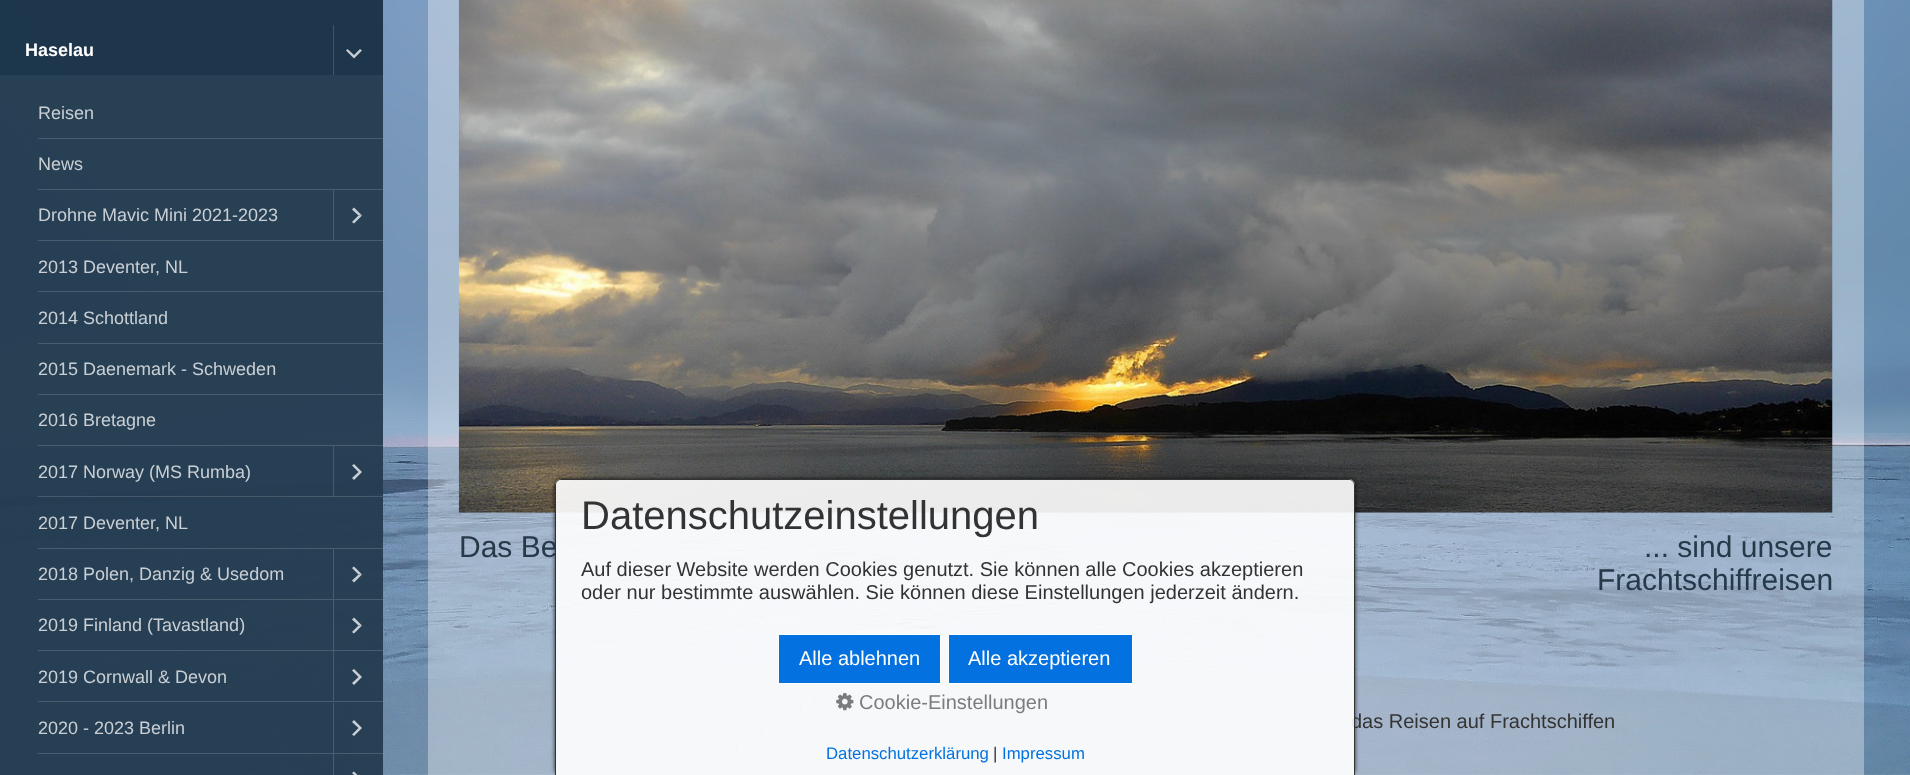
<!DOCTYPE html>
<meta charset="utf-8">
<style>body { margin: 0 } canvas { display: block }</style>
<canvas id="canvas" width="1910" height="775"></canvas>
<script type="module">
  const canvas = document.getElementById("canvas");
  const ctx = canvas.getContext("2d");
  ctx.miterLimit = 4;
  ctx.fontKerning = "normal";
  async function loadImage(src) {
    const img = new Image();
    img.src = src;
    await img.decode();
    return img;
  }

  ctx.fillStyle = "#ffffff";
  ctx.fillRect(0, 0, 1910, 775);
  ctx.drawImage(await loadImage("img1.png"), 0, 0, 1910, 775);
  ctx.fillStyle = "rgba(26, 51, 71, 0.81)";
  ctx.fillRect(0, 0, 383, 775);
  ctx.fillRect(0, 0, 383, 775);
  ctx.font = "bold 18px Liberation Sans";
  ctx.fillStyle = "#ffffff";
  ctx.fillText("Haselau", 25, 56);
  ctx.fillStyle = "#3f5566";
  ctx.fillRect(333, 25, 1, 50);
  ctx.fillStyle = "#c7cdd2";
  ctx.beginPath();
  ctx.moveTo(362, 50.5);
  ctx.lineTo(354, 58.5);
  ctx.lineTo(354, 55);
  ctx.lineTo(360, 49);
  ctx.closePath();
  ctx.moveTo(354, 58.5);
  ctx.lineTo(346, 50.5);
  ctx.lineTo(347.5, 49);
  ctx.lineTo(354, 55);
  ctx.closePath();
  ctx.fill();
  ctx.fillStyle = "rgba(255, 255, 255, 0.05)";
  ctx.fillRect(0, 75, 383, 700);
  ctx.font = "18px Liberation Sans";
  ctx.fillStyle = "#c9cfd4";
  ctx.fillText("Reisen", 38, 119);
  ctx.fillStyle = "#495d6e";
  ctx.fillRect(38, 138, 345, 1);
  ctx.fillStyle = "#c9cfd4";
  ctx.fillText("News", 38, 170);
  ctx.fillStyle = "#495d6e";
  ctx.fillRect(38, 189, 345, 1);
  ctx.fillStyle = "#c9cfd4";
  ctx.fillText("Drohne Mavic Mini 2021-2023", 38, 221);
  ctx.fillStyle = "#495d6e";
  ctx.fillRect(333, 190, 1, 50);
  ctx.fillStyle = "#c9cfd4";
  ctx.beginPath();
  ctx.moveTo(354, 207.5);
  ctx.lineTo(362, 215.5);
  ctx.lineTo(358.5, 215.5);
  ctx.lineTo(352, 209.5);
  ctx.closePath();
  ctx.fill();
  ctx.beginPath();
  ctx.moveTo(362, 215.5);
  ctx.lineTo(354, 223.5);
  ctx.lineTo(352, 222);
  ctx.lineTo(358.5, 215.5);
  ctx.closePath();
  ctx.fill();
  ctx.fillStyle = "#495d6e";
  ctx.fillRect(38, 240, 345, 1);
  ctx.fillStyle = "#c9cfd4";
  ctx.fillText("2013 Deventer, NL", 38, 273);
  ctx.fillStyle = "#495d6e";
  ctx.fillRect(38, 291, 345, 1);
  ctx.fillStyle = "#c9cfd4";
  ctx.fillText("2014 Schottland", 38, 324);
  ctx.fillStyle = "#495d6e";
  ctx.fillRect(38, 343, 345, 1);
  ctx.fillStyle = "#c9cfd4";
  ctx.fillText("2015 Daenemark - Schweden", 38, 375);
  ctx.fillStyle = "#495d6e";
  ctx.fillRect(38, 394, 345, 1);
  ctx.fillStyle = "#c9cfd4";
  ctx.fillText("2016 Bretagne", 38, 426);
  ctx.fillStyle = "#495e6e";
  ctx.fillRect(38, 445, 345, 1);
  ctx.fillStyle = "#c9cfd4";
  ctx.fillText("2017 Norway (MS Rumba)", 38, 478);
  ctx.fillStyle = "rgba(255, 255, 255, 0.15)";
  ctx.fillRect(333, 446, 1, 50);
  ctx.fillStyle = "#c9cfd4";
  ctx.beginPath();
  ctx.moveTo(354, 464);
  ctx.lineTo(362, 472);
  ctx.lineTo(358.5, 472);
  ctx.lineTo(352, 465.5);
  ctx.closePath();
  ctx.moveTo(362, 472);
  ctx.lineTo(354, 480);
  ctx.lineTo(352, 478);
  ctx.lineTo(358.5, 472);
  ctx.closePath();
  ctx.fill();
  ctx.fillStyle = "rgba(255, 255, 255, 0.15)";
  ctx.fillRect(38, 496, 345, 1);
  ctx.fillStyle = "#c9cfd4";
  ctx.fillText("2017 Deventer, NL", 38, 529);
  ctx.fillStyle = "#485d6d";
  ctx.fillRect(38, 548, 345, 1);
  ctx.fillStyle = "#c9cfd4";
  ctx.fillText("2018 Polen, Danzig & Usedom", 38, 580);
  ctx.fillStyle = "#495d6d";
  ctx.fillRect(333, 549, 1, 50);
  ctx.fillStyle = "#c9cfd4";
  ctx.beginPath();
  ctx.moveTo(354, 566.5);
  ctx.lineTo(362, 574.5);
  ctx.lineTo(358.5, 574.5);
  ctx.lineTo(352, 568);
  ctx.closePath();
  ctx.fill();
  ctx.beginPath();
  ctx.moveTo(362, 574.5);
  ctx.lineTo(354, 582.5);
  ctx.lineTo(352, 580.5);
  ctx.lineTo(358.5, 574.5);
  ctx.closePath();
  ctx.fill();
  ctx.fillStyle = "#485d6d";
  ctx.fillRect(38, 599, 345, 1);
  ctx.fillStyle = "#c9cfd4";
  ctx.fillText("2019 Finland (Tavastland)", 38, 631);
  ctx.fillStyle = "#495d6d";
  ctx.fillRect(333, 600, 1, 50);
  ctx.fillStyle = "#c9cfd4";
  ctx.beginPath();
  ctx.moveTo(354, 617.5);
  ctx.lineTo(362, 625.5);
  ctx.lineTo(358.5, 625.5);
  ctx.lineTo(352, 619.5);
  ctx.closePath();
  ctx.fill();
  ctx.beginPath();
  ctx.moveTo(362, 625.5);
  ctx.lineTo(354, 633.5);
  ctx.lineTo(352, 632);
  ctx.lineTo(358.5, 625.5);
  ctx.closePath();
  ctx.fill();
  ctx.fillStyle = "#485d6d";
  ctx.fillRect(38, 650, 345, 1);
  ctx.fillStyle = "#c9cfd4";
  ctx.fillText("2019 Cornwall & Devon", 38, 683);
  ctx.fillStyle = "#485d6d";
  ctx.fillRect(333, 651, 1, 50);
  ctx.fillStyle = "#c9cfd4";
  ctx.beginPath();
  ctx.moveTo(354, 669);
  ctx.lineTo(362, 677);
  ctx.lineTo(358.5, 677);
  ctx.lineTo(352, 670.5);
  ctx.closePath();
  ctx.moveTo(362, 677);
  ctx.lineTo(354, 685);
  ctx.lineTo(352, 683);
  ctx.lineTo(358.5, 677);
  ctx.closePath();
  ctx.fill();
  ctx.fillStyle = "#485d6d";
  ctx.fillRect(38, 701, 345, 1);
  ctx.fillStyle = "#c9cfd4";
  ctx.fillText("2020 - 2023 Berlin", 38, 734);
  ctx.fillStyle = "#485d6d";
  ctx.fillRect(333, 703, 1, 50);
  ctx.fillStyle = "#c9cfd4";
  ctx.beginPath();
  ctx.moveTo(354, 720);
  ctx.lineTo(362, 728);
  ctx.lineTo(358.5, 728);
  ctx.lineTo(352, 722);
  ctx.closePath();
  ctx.moveTo(362, 728);
  ctx.lineTo(354, 736);
  ctx.lineTo(352, 734.5);
  ctx.lineTo(358.5, 728);
  ctx.closePath();
  ctx.fill();
  ctx.fillStyle = "#485d6d";
  ctx.fillRect(38, 753, 345, 1);
  ctx.fillRect(333, 754, 1, 21);
  ctx.fillStyle = "#c9cfd4";
  ctx.beginPath();
  ctx.moveTo(354, 771.5);
  ctx.lineTo(362, 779.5);
  ctx.lineTo(358.5, 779.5);
  ctx.lineTo(352, 773);
  ctx.closePath();
  ctx.fill();
  ctx.fillStyle = "rgba(255, 255, 255, 0.35)";
  ctx.fillRect(428, 0, 1436, 775);
  ctx.drawImage(await loadImage("img3.png"), 458, 0, 1375, 513);
  ctx.save();
  ctx.beginPath();
  ctx.moveTo(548, 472);
  ctx.lineTo(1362, 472);
  ctx.lineTo(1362, 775);
  ctx.lineTo(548, 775);
  ctx.closePath();
  ctx.moveTo(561, 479);
  ctx.lineTo(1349, 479);
  ctx.bezierCurveTo(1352.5, 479, 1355, 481.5, 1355, 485);
  ctx.lineTo(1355, 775);
  ctx.lineTo(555, 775);
  ctx.lineTo(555, 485);
  ctx.bezierCurveTo(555, 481.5, 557.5, 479, 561, 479);
  ctx.closePath();
  ctx.clip("evenodd");
  ctx.fillStyle = "rgba(0, 0, 0, 0.8)";
  ctx.filter = "blur(2px)";
  ctx.beginPath();
  ctx.roundRect(555, 479, 800, 296, 6);
  ctx.fill();
  ctx.filter = "none";
  ctx.restore();
  ctx.font = "30px Liberation Sans";
  ctx.fillStyle = "#253949";
  ctx.fillText("Das Be", 459, 557);
  ctx.font = "20px Liberation Sans";
  ctx.fillStyle = "#333333";
  ctx.fillText("das Reisen auf Frachtschiffen", 1351, 728);
  ctx.fillStyle = "rgba(255, 255, 255, 0.9)";
  ctx.beginPath();
  ctx.roundRect(555, 479, 800, 296, [6, 6, 0, 0]);
  ctx.fill();
  ctx.fillStyle = "#333333";
  ctx.beginPath();
  ctx.moveTo(561, 479);
  ctx.lineTo(1349, 479);
  ctx.bezierCurveTo(1352, 479, 1355, 482, 1355, 485);
  ctx.lineTo(1355, 775);
  ctx.lineTo(555, 775);
  ctx.lineTo(555, 485);
  ctx.bezierCurveTo(555, 482, 558, 479, 561, 479);
  ctx.closePath();
  ctx.moveTo(561, 480);
  ctx.lineTo(1349, 480);
  ctx.bezierCurveTo(1352, 480, 1354, 482, 1354, 485);
  ctx.lineTo(1354, 775);
  ctx.lineTo(556, 775);
  ctx.lineTo(556, 485);
  ctx.bezierCurveTo(556, 482, 558, 480, 561, 480);
  ctx.closePath();
  ctx.fill("evenodd");
  ctx.font = "40px Liberation Sans";
  ctx.fillText("Datenschutzeinstellungen", 581, 529);
  ctx.font = "20px Liberation Sans";
  ctx.fillText("Auf dieser Website werden Cookies genutzt. Sie können alle Cookies akzeptieren", 581, 576);
  ctx.fillText("oder nur bestimmte auswählen. Sie können diese Einstellungen jederzeit ändern.", 581, 599);
  ctx.fillStyle = "#0371df";
  ctx.beginPath();
  ctx.rect(778.5, 634.5, 162, 49);
  ctx.fill();
  ctx.strokeStyle = "#ffffff";
  ctx.stroke();
  ctx.fillStyle = "#ffffff";
  ctx.fillText("Alle ablehnen", 799, 665);
  ctx.fillStyle = "#0371df";
  ctx.beginPath();
  ctx.rect(948.5, 634.5, 184, 49);
  ctx.fill();
  ctx.stroke();
  ctx.fillStyle = "#ffffff";
  ctx.fillText("Alle akzeptieren", 968, 665);
  ctx.drawImage(await loadImage("img2.png"), 836, 693, 18, 18);
  ctx.fillStyle = "#7c7c7c";
  ctx.fillText("Cookie-Einstellungen", 859, 709);
  ctx.font = "16.75px Liberation Sans";
  ctx.fillStyle = "#0371df";
  ctx.fillText("Datenschutzerklärung", 826, 759);
  ctx.fillStyle = "#333333";
  ctx.fillText("|", 993, 759);
  ctx.fillStyle = "#0371df";
  ctx.fillText("Impressum", 1002, 759);
  ctx.font = "30px Liberation Sans";
  ctx.fillStyle = "#253949";
  ctx.fillText("... sind unsere", 1644, 557);
  ctx.fillText("Frachtschiffreisen", 1597, 590);
</script>
